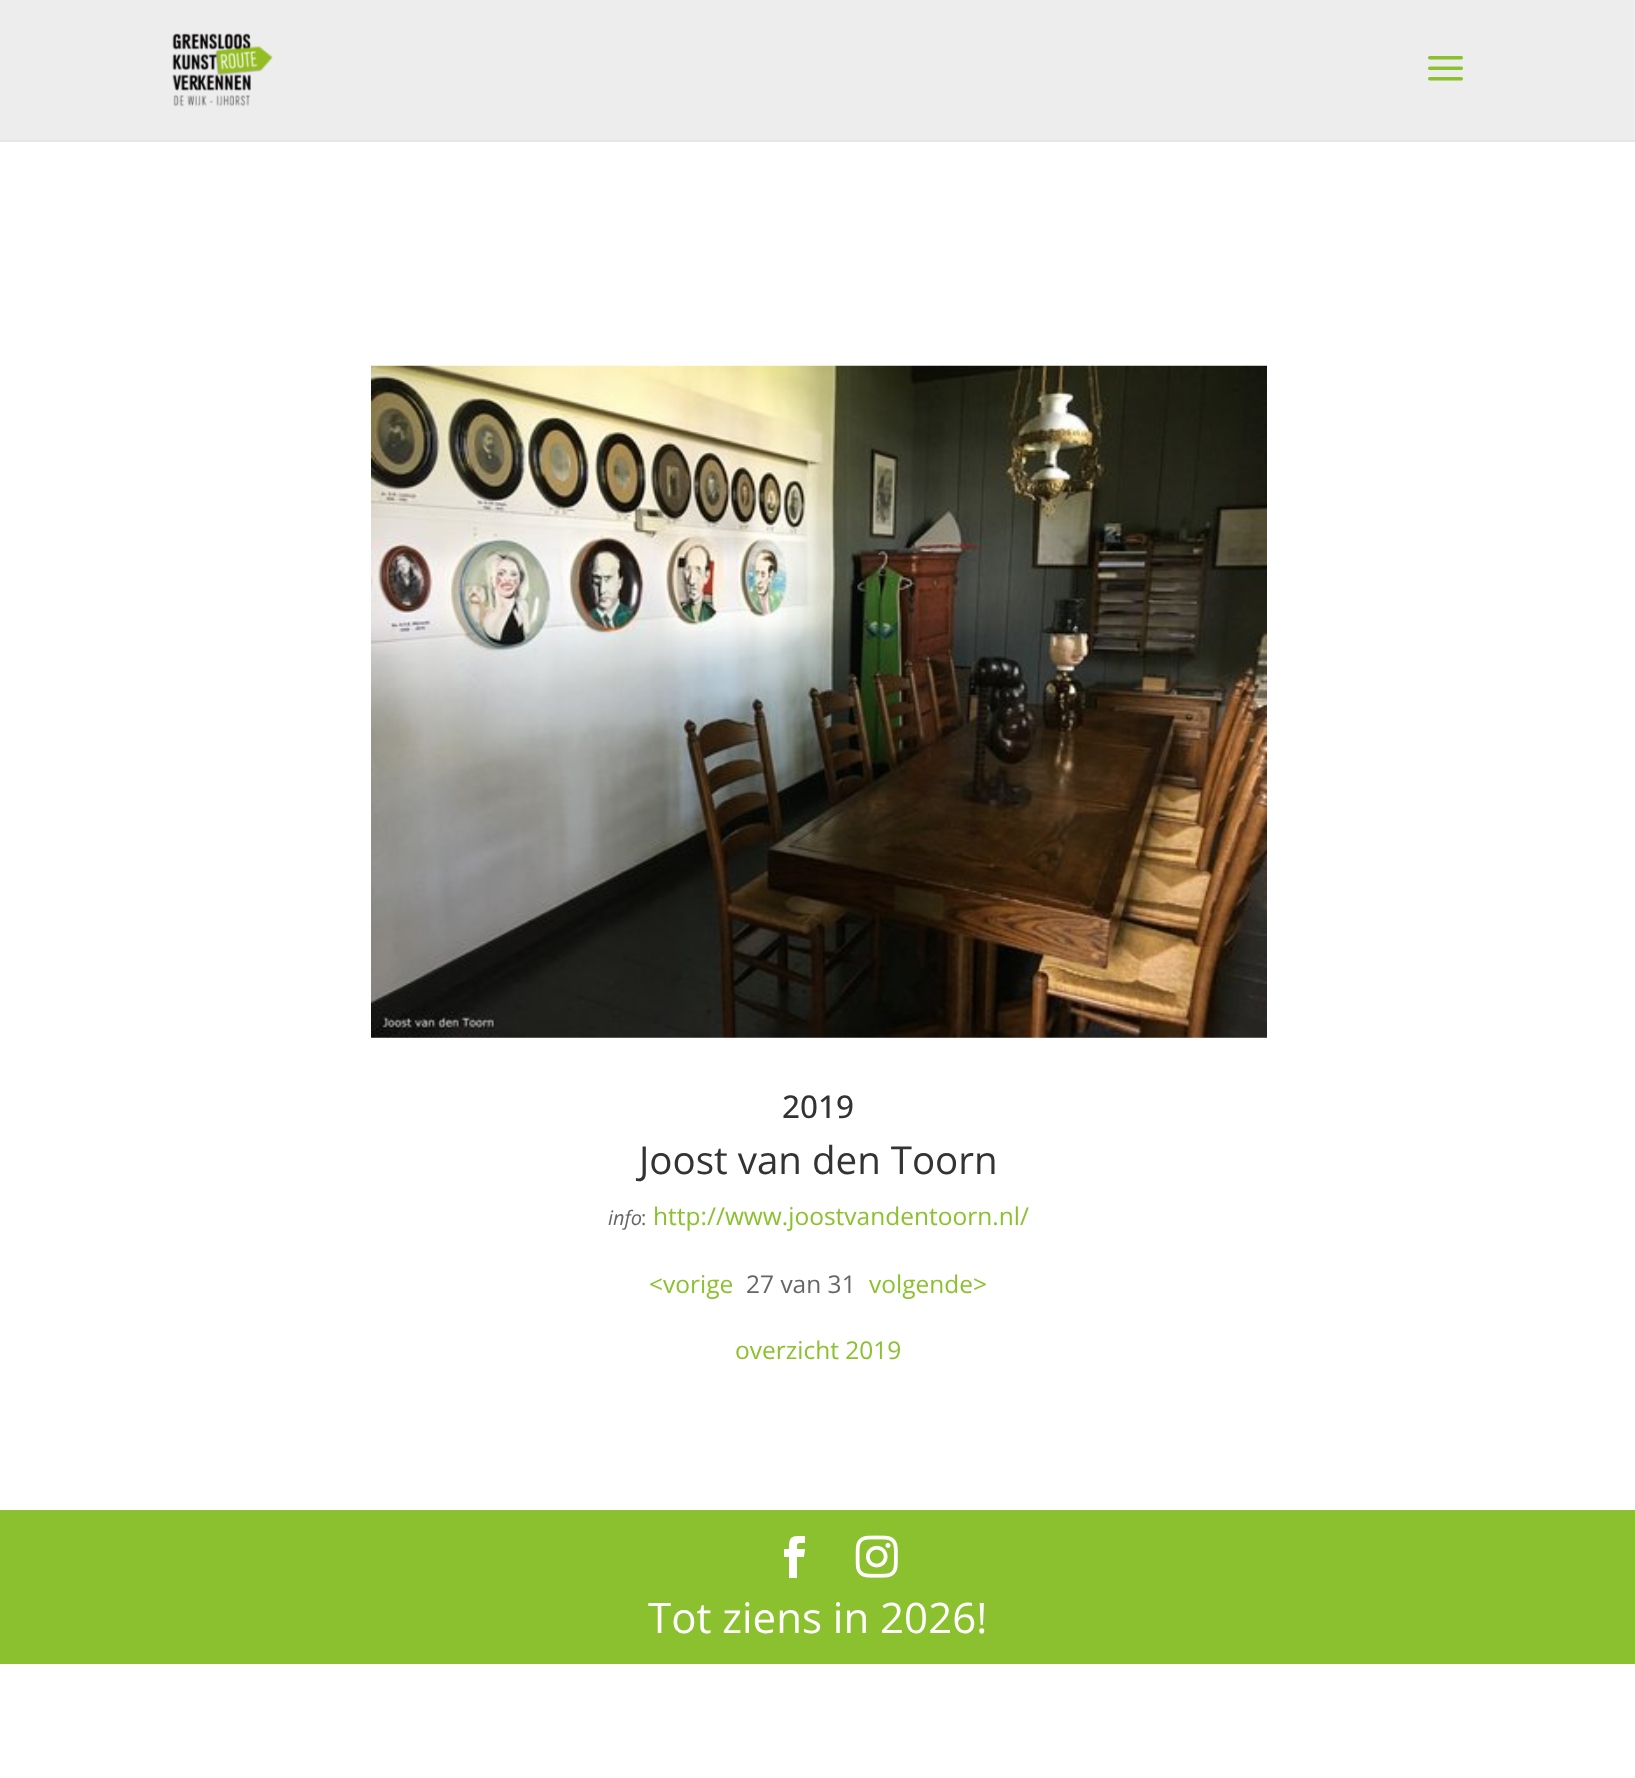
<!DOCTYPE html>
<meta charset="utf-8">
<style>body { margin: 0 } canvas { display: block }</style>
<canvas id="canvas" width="1635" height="1778"></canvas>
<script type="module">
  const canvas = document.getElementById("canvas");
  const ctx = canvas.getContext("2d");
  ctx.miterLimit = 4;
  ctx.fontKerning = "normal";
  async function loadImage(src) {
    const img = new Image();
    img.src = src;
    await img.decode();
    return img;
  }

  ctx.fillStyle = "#ffffff";
  ctx.fillRect(0, 0, 1635, 1778);
  ctx.fillStyle = "#e6e6e6";
  ctx.fillRect(0, 140, 1635, 2);
  ctx.fillStyle = "#ededed";
  ctx.fillRect(0, 0, 1635, 140);
  ctx.drawImage(await loadImage("img1.png"), 172, 33, 101, 74);
  ctx.drawImage(await loadImage("img2.png"), 1428, 56, 35, 25);
  ctx.drawImage(await loadImage("img3.png"), 371, 365, 896, 673);
  ctx.font = "500 31.5px Open Sans";
  ctx.fillStyle = "#333333";
  ctx.fillText("2019", 782, 1118);
  ctx.font = "38.5px Open Sans";
  ctx.fillText("Joost van den Toorn", 639, 1174);
  ctx.font = "italic 20px Open Sans";
  ctx.fillStyle = "#666666";
  ctx.fillText("info", 608, 1225);
  ctx.font = "20px Open Sans";
  ctx.fillText(":", 641, 1225);
  ctx.font = "24.5px Open Sans";
  ctx.fillStyle = "#8bc12e";
  ctx.fillText("http://www.joostvandentoorn.nl/", 653, 1225);
  ctx.fillText("<vorige", 649, 1293);
  ctx.fillStyle = "#666666";
  ctx.fillText("27 van 31", 746, 1293);
  ctx.fillStyle = "#8bc12e";
  ctx.fillText("volgende>", 869, 1293);
  ctx.fillText("overzicht 2019", 735, 1359);
  ctx.fillRect(0, 1510, 1635, 154);
  ctx.fillStyle = "#ffffff";
  ctx.beginPath();
  ctx.moveTo(789, 1578);
  ctx.lineTo(797, 1578);
  ctx.lineTo(797, 1557);
  ctx.lineTo(804, 1557);
  ctx.lineTo(805, 1549);
  ctx.lineTo(797, 1549);
  ctx.bezierCurveTo(797, 1542, 797, 1543, 805, 1543);
  ctx.lineTo(805, 1536);
  ctx.bezierCurveTo(792, 1536, 789, 1535, 789, 1549);
  ctx.lineTo(784, 1549);
  ctx.lineTo(784, 1557);
  ctx.lineTo(789, 1557);
  ctx.closePath();
  ctx.fill();
  ctx.drawImage(await loadImage("img4.png"), 855, 1535, 43, 43);
  ctx.font = "42px Open Sans";
  ctx.fillText("Tot ziens in 2026!", 648, 1633);
</script>
